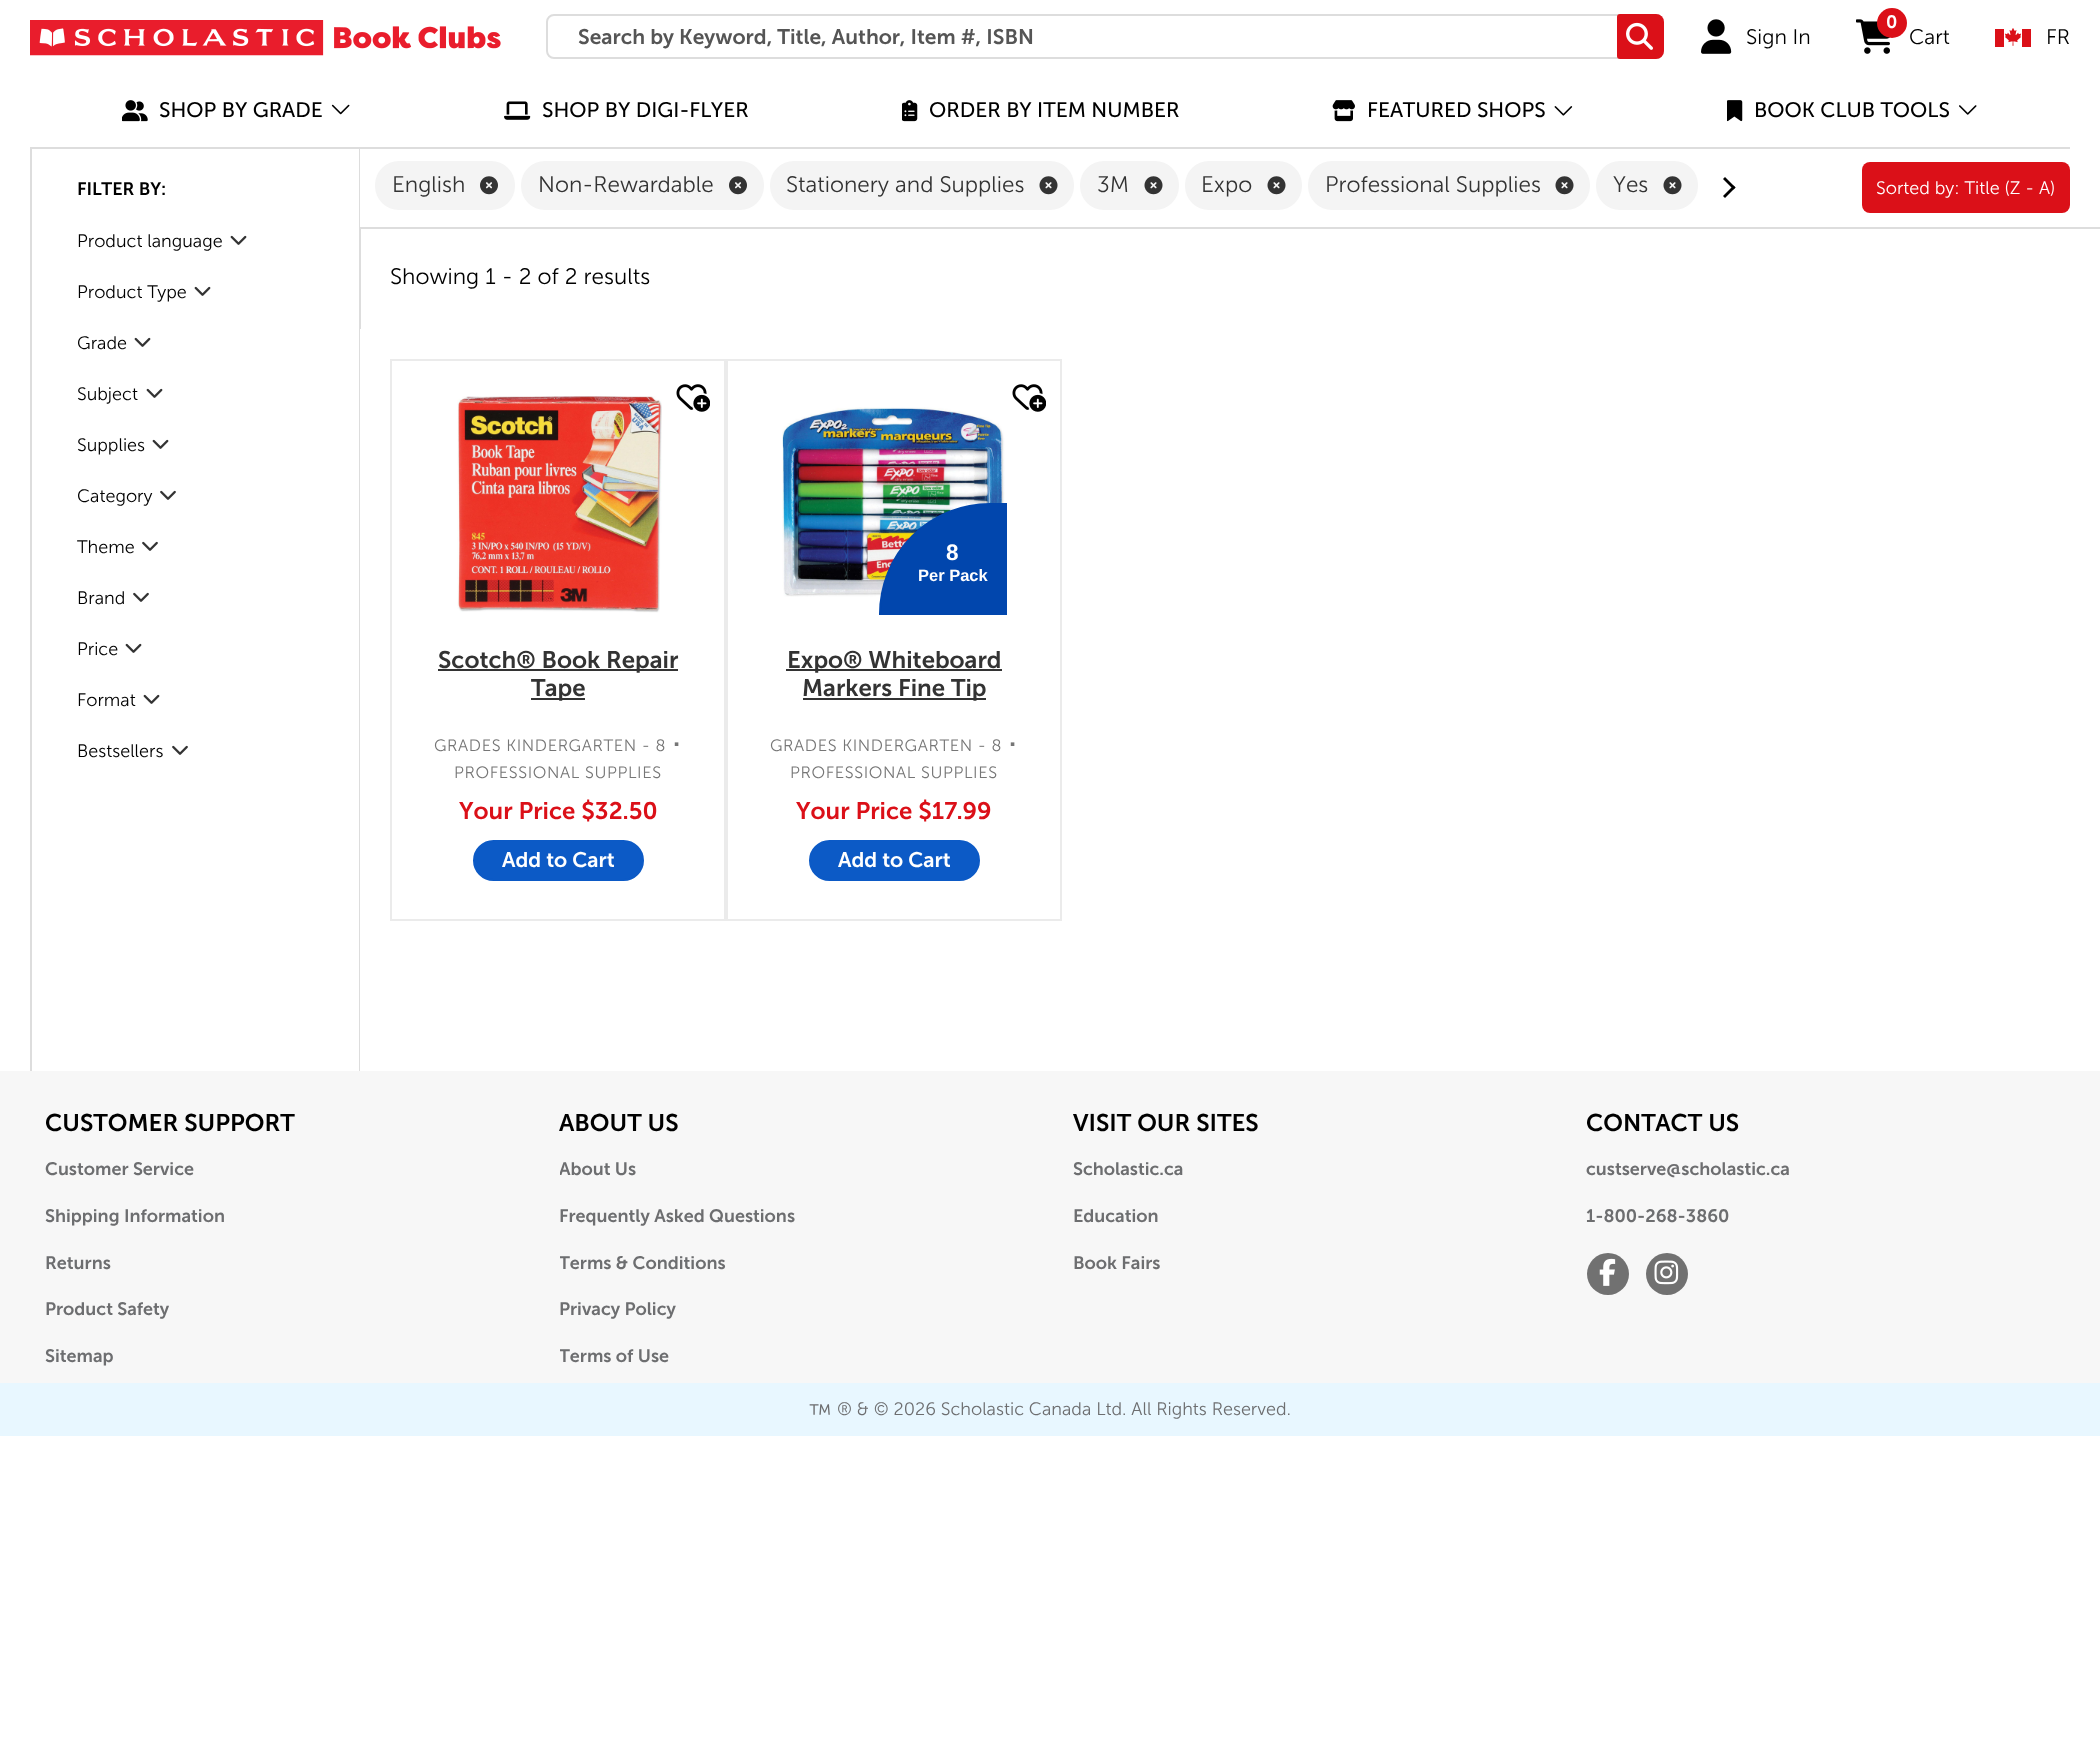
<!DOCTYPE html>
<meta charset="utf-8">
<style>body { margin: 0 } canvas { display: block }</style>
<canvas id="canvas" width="2100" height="1743"></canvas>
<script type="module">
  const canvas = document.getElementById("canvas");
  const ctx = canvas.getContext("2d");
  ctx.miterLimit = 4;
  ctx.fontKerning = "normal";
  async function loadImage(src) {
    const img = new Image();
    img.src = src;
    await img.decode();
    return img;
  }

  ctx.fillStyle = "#ffffff";
  ctx.fillRect(0, 0, 2100, 1743);
  ctx.drawImage(await loadImage("img1.png"), 30, 20, 471, 36);
  ctx.beginPath();
  ctx.roundRect(547, 15, 1116, 43, 7);
  ctx.strokeStyle = "#dddddd";
  ctx.lineWidth = 2;
  ctx.stroke();
  ctx.font = "600 21px 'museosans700'";
  ctx.fillStyle = "#555555";
  ctx.fillText("Search by Keyword, Title, Author, Item #, ISBN", 578, 44);
  ctx.fillStyle = "#db1018";
  ctx.beginPath();
  ctx.roundRect(1617, 14, 47, 45, [3, 8, 8, 3]);
  ctx.fill();
  ctx.drawImage(await loadImage("img2.png"), 1626, 22, 27, 28);
  ctx.drawImage(await loadImage("img3.png"), 1701, 19, 31, 35);
  ctx.font = "300 21px 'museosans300'";
  ctx.fillStyle = "#000000";
  ctx.fillText("Sign In", 1746, 44);
  ctx.drawImage(await loadImage("img4.png"), 1856, 19, 34, 35);
  ctx.fillStyle = "#db1018";
  ctx.beginPath();
  ctx.arc(1892, 23, 15, 0, Math.PI * 2);
  ctx.fill();
  ctx.font = "600 18px 'museosans700'";
  ctx.fillStyle = "#ffffff";
  ctx.fillText("0", 1886, 28);
  ctx.font = "300 21px 'museosans300'";
  ctx.fillStyle = "#000000";
  ctx.fillText("Cart", 1909, 44);
  ctx.fillStyle = "#db1018";
  ctx.fillRect(2022, 29, 9, 18);
  ctx.fillRect(1995, 29, 9, 18);
  ctx.drawImage(await loadImage("img5.png"), 2004, 28, 18, 18);
  ctx.fillStyle = "#000000";
  ctx.fillText("FR", 2046, 44);
  ctx.fillStyle = "#dddddd";
  ctx.fillRect(30, 147, 2040, 2);
  ctx.drawImage(await loadImage("img6.png"), 122, 100, 26, 22);
  ctx.font = "21px 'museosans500'";
  ctx.fillStyle = "#000000";
  ctx.fillText("SHOP BY GRADE", 159, 117);
  ctx.drawImage(await loadImage("img7.png"), 331, 104, 19, 11);
  ctx.drawImage(await loadImage("img8.png"), 504, 101, 27, 19);
  ctx.fillText("SHOP BY DIGI-FLYER", 542, 117);
  ctx.drawImage(await loadImage("img9.png"), 902, 100, 16, 22);
  ctx.fillText("ORDER BY ITEM NUMBER", 929, 117);
  ctx.drawImage(await loadImage("img10.png"), 1332, 100, 23, 22);
  ctx.fillText("FEATURED SHOPS", 1367, 117);
  ctx.drawImage(await loadImage("img11.png"), 1554, 106, 19, 10);
  ctx.drawImage(await loadImage("img12.png"), 1727, 100, 16, 22);
  ctx.fillText("BOOK CLUB TOOLS", 1754, 117);
  ctx.drawImage(await loadImage("img13.png"), 1959, 105, 18, 10);
  ctx.fillStyle = "#dddddd";
  ctx.fillRect(359, 149, 2, 922);
  ctx.fillRect(30, 149, 2, 922);
  ctx.font = "600 18px 'museosans700'";
  ctx.fillStyle = "#000000";
  ctx.fillText("FILTER BY:", 77, 195);
  ctx.font = "300 18px 'museosans300'";
  ctx.fillText("Product language", 77, 247);
  ctx.drawImage(await loadImage("img14.png"), 230, 235, 17, 10);
  ctx.fillText("Product Type", 77, 298);
  ctx.drawImage(await loadImage("img14.png"), 194, 286, 17, 10);
  ctx.fillText("Grade", 77, 349);
  ctx.drawImage(await loadImage("img14.png"), 134, 337, 17, 10);
  ctx.fillText("Subject", 77, 400);
  ctx.drawImage(await loadImage("img14.png"), 146, 388, 17, 10);
  ctx.fillText("Supplies", 77, 451);
  ctx.drawImage(await loadImage("img14.png"), 152, 439, 17, 10);
  ctx.fillText("Category", 77, 502);
  ctx.drawImage(await loadImage("img15.png"), 160, 490, 16, 10);
  ctx.fillText("Theme", 77, 553);
  ctx.drawImage(await loadImage("img15.png"), 142, 541, 16, 10);
  ctx.fillText("Brand", 77, 604);
  ctx.drawImage(await loadImage("img15.png"), 133, 592, 16, 10);
  ctx.fillText("Price", 77, 655);
  ctx.drawImage(await loadImage("img14.png"), 125, 643, 17, 10);
  ctx.fillText("Format", 77, 706);
  ctx.drawImage(await loadImage("img14.png"), 143, 694, 17, 10);
  ctx.fillText("Bestsellers", 77, 757);
  ctx.drawImage(await loadImage("img15.png"), 172, 745, 16, 10);
  ctx.fillStyle = "#ffffff";
  ctx.fillRect(360, 149, 1, 78);
  ctx.fillStyle = "#dddddd";
  ctx.fillRect(360, 227, 1740, 2);
  ctx.fillStyle = "#f4f4f4";
  ctx.beginPath();
  ctx.roundRect(375, 161, 140, 49, 24);
  ctx.fill();
  ctx.font = "300 22.5px 'museosans300'";
  ctx.fillStyle = "#333333";
  ctx.fillText("English", 392, 192);
  ctx.drawImage(await loadImage("img16.png"), 480, 176, 18, 19);
  ctx.fillStyle = "#f4f4f4";
  ctx.beginPath();
  ctx.roundRect(521, 161, 243, 49, 24);
  ctx.fill();
  ctx.fillStyle = "#333333";
  ctx.fillText("Non-Rewardable", 538, 192);
  ctx.drawImage(await loadImage("img16.png"), 729, 176, 18, 19);
  ctx.fillStyle = "#f4f4f4";
  ctx.beginPath();
  ctx.roundRect(770, 161, 304, 49, 24);
  ctx.fill();
  ctx.fillStyle = "#333333";
  ctx.fillText("Stationery and Supplies", 786, 192);
  ctx.drawImage(await loadImage("img17.png"), 1039, 176, 19, 19);
  ctx.fillStyle = "#f4f4f4";
  ctx.beginPath();
  ctx.roundRect(1080, 161, 99, 49, 24);
  ctx.fill();
  ctx.fillStyle = "#333333";
  ctx.fillText("3M", 1097, 192);
  ctx.drawImage(await loadImage("img17.png"), 1144, 176, 19, 19);
  ctx.fillStyle = "#f4f4f4";
  ctx.beginPath();
  ctx.roundRect(1185, 161, 117, 49, 24);
  ctx.fill();
  ctx.fillStyle = "#333333";
  ctx.fillText("Expo", 1201, 192);
  ctx.drawImage(await loadImage("img17.png"), 1267, 176, 19, 19);
  ctx.fillStyle = "#f4f4f4";
  ctx.beginPath();
  ctx.roundRect(1308, 161, 282, 49, 24);
  ctx.fill();
  ctx.fillStyle = "#333333";
  ctx.fillText("Professional Supplies", 1325, 192);
  ctx.drawImage(await loadImage("img17.png"), 1555, 176, 19, 19);
  ctx.fillStyle = "#f4f4f4";
  ctx.beginPath();
  ctx.roundRect(1596, 161, 102, 49, 24);
  ctx.fill();
  ctx.fillStyle = "#333333";
  ctx.fillText("Yes", 1613, 192);
  ctx.drawImage(await loadImage("img17.png"), 1663, 176, 19, 19);
  ctx.fillStyle = "#000000";
  ctx.beginPath();
  ctx.moveTo(1723, 179);
  ctx.lineTo(1725, 177);
  ctx.lineTo(1735.5, 187.5);
  ctx.lineTo(1733.5, 189.5);
  ctx.closePath();
  ctx.fill();
  ctx.beginPath();
  ctx.moveTo(1723, 196);
  ctx.lineTo(1733.5, 185.5);
  ctx.lineTo(1735.5, 187.5);
  ctx.lineTo(1725, 198);
  ctx.closePath();
  ctx.fill();
  ctx.fillStyle = "#db1018";
  ctx.beginPath();
  ctx.roundRect(1862, 162, 208, 51, 8);
  ctx.fill();
  ctx.font = "300 18px 'museosans300'";
  ctx.fillStyle = "#ffffff";
  ctx.fillText("Sorted by: Title (Z - A)", 1876, 194);
  ctx.font = "300 22.5px 'museosans300'";
  ctx.fillStyle = "#000000";
  ctx.fillText("Showing 1 - 2 of 2 results", 390, 284);
  ctx.fillStyle = "#ffffff";
  ctx.fillRect(360, 329, 1, 742);
  ctx.strokeStyle = "#ebebeb";
  ctx.strokeRect(391, 360, 334, 560);
  ctx.drawImage(await loadImage("img18.png"), 457, 396, 205, 217);
  ctx.drawImage(await loadImage("img19.png"), 676, 384, 34, 28);
  ctx.fillStyle = "#333333";
  ctx.fillRect(438, 669, 240, 2);
  ctx.font = "600 24px 'museosans700'";
  ctx.fillText("Scotch® Book Repair", 438, 668);
  ctx.fillRect(531, 698, 54, 2);
  ctx.fillText("Tape", 531, 696);
  ctx.letterSpacing = "0.6px";
  ctx.font = "300 16.5px 'museosans300'";
  ctx.fillStyle = "#767676";
  ctx.fillText("GRADES KINDERGARTEN - 8", 434, 751);
  ctx.font = "300 45px 'museosans300'";
  ctx.fillText(".", 671, 746);
  ctx.font = "300 16.5px 'museosans300'";
  ctx.fillText("PROFESSIONAL SUPPLIES", 454, 778);
  ctx.letterSpacing = "0px";
  ctx.font = "600 24px 'museosans700'";
  ctx.fillStyle = "#db1018";
  ctx.fillText("Your Price $32.50", 459, 819);
  ctx.fillStyle = "#0c5ac6";
  ctx.beginPath();
  ctx.roundRect(474, 841, 169, 39, 19.5);
  ctx.fill();
  ctx.strokeStyle = "#0c5ac6";
  ctx.stroke();
  ctx.font = "600 21px 'museosans700'";
  ctx.fillStyle = "#ffffff";
  ctx.fillText("Add to Cart", 502, 867);
  ctx.strokeStyle = "#ebebeb";
  ctx.strokeRect(727, 360, 334, 560);
  ctx.drawImage(await loadImage("img19.png"), 1012, 384, 34, 28);
  ctx.drawImage(await loadImage("img20.png"), 782, 407, 223, 190);
  ctx.fillStyle = "#0146ad";
  ctx.beginPath();
  ctx.roundRect(880, 504, 126, 110, [111, 0, 0, 0]);
  ctx.fill();
  ctx.strokeStyle = "#0146ad";
  ctx.stroke();
  ctx.font = "bold 22.5px Liberation Sans";
  ctx.fillStyle = "#ffffff";
  ctx.fillText("8", 946, 560);
  ctx.font = "bold 16.5px Liberation Sans";
  ctx.fillText("Per Pack", 918, 581);
  ctx.fillStyle = "#333333";
  ctx.fillRect(786, 669, 216, 2);
  ctx.font = "600 24px 'museosans700'";
  ctx.fillText("Expo® Whiteboard", 787, 668);
  ctx.fillRect(803, 698, 183, 2);
  ctx.fillText("Markers Fine Tip", 802, 696);
  ctx.letterSpacing = "0.6px";
  ctx.font = "300 16.5px 'museosans300'";
  ctx.fillStyle = "#767676";
  ctx.fillText("GRADES KINDERGARTEN - 8", 770, 751);
  ctx.font = "300 45px 'museosans300'";
  ctx.fillText(".", 1007, 746);
  ctx.font = "300 16.5px 'museosans300'";
  ctx.fillText("PROFESSIONAL SUPPLIES", 790, 778);
  ctx.letterSpacing = "0px";
  ctx.font = "600 24px 'museosans700'";
  ctx.fillStyle = "#db1018";
  ctx.fillText("Your Price $17.99", 796, 819);
  ctx.fillStyle = "#0c5ac6";
  ctx.beginPath();
  ctx.roundRect(810, 841, 169, 39, 19.5);
  ctx.fill();
  ctx.strokeStyle = "#0c5ac6";
  ctx.stroke();
  ctx.font = "600 21px 'museosans700'";
  ctx.fillStyle = "#ffffff";
  ctx.fillText("Add to Cart", 838, 867);
  ctx.fillStyle = "#f7f7f7";
  ctx.fillRect(0, 1071, 2100, 312);
  ctx.font = "600 24.1px 'museosans700'";
  ctx.fillStyle = "#000000";
  ctx.fillText("CUSTOMER SUPPORT", 45, 1131);
  ctx.font = "600 18px 'museosans700'";
  ctx.fillStyle = "#6d6e70";
  ctx.fillText("Customer Service", 45, 1175);
  ctx.fillText("Shipping Information", 45, 1222);
  ctx.fillText("Returns", 45, 1269);
  ctx.fillText("Product Safety", 45, 1315);
  ctx.fillText("Sitemap", 45, 1362);
  ctx.font = "600 24.1px 'museosans700'";
  ctx.fillStyle = "#000000";
  ctx.fillText("ABOUT US", 559, 1131);
  ctx.save();
  ctx.beginPath();
  ctx.rect(560, 1149, 76, 41);
  ctx.clip();
  ctx.font = "600 18px 'museosans700'";
  ctx.fillStyle = "#6d6e70";
  ctx.fillText("About Us", 559, 1175);
  ctx.restore();
  ctx.font = "600 18px 'museosans700'";
  ctx.fillStyle = "#6d6e70";
  ctx.fillText("Frequently Asked Questions", 559, 1222);
  ctx.save();
  ctx.beginPath();
  ctx.rect(560, 1244, 166, 39);
  ctx.clip();
  ctx.fillText("Terms & Conditions", 559, 1269);
  ctx.restore();
  ctx.fillText("Privacy Policy", 559, 1315);
  ctx.save();
  ctx.beginPath();
  ctx.rect(560, 1337, 109, 39);
  ctx.clip();
  ctx.fillText("Terms of Use", 559, 1362);
  ctx.restore();
  ctx.font = "600 24.1px 'museosans700'";
  ctx.fillStyle = "#000000";
  ctx.fillText("VISIT OUR SITES", 1073, 1131);
  ctx.font = "600 18px 'museosans700'";
  ctx.fillStyle = "#6d6e70";
  ctx.fillText("Scholastic.ca", 1073, 1175);
  ctx.fillText("Education", 1073, 1222);
  ctx.fillText("Book Fairs", 1073, 1269);
  ctx.font = "600 24.1px 'museosans700'";
  ctx.fillStyle = "#000000";
  ctx.fillText("CONTACT US", 1586, 1131);
  ctx.font = "600 18px 'museosans700'";
  ctx.fillStyle = "#6d6e70";
  ctx.fillText("custserve@scholastic.ca", 1586, 1175);
  ctx.fillText("1-800-268-3860", 1586, 1222);
  ctx.fillStyle = "#717171";
  ctx.beginPath();
  ctx.arc(1608, 1274, 21, 0, Math.PI * 2);
  ctx.fill();
  ctx.drawImage(await loadImage("img21.png"), 1599, 1258, 17, 28);
  ctx.beginPath();
  ctx.arc(1667, 1274, 21, 0, Math.PI * 2);
  ctx.fill();
  ctx.drawImage(await loadImage("img22.png"), 1654, 1260, 25, 25);
  ctx.fillStyle = "#e8f7ff";
  ctx.fillRect(0, 1383, 2100, 53);
  ctx.font = "300 24px 'museosans300'";
  ctx.fillStyle = "#6d6e70";
  ctx.fillText("™", 809, 1421);
  ctx.font = "300 18px 'museosans300'";
  ctx.fillText("® & © 2026 Scholastic Canada Ltd. All Rights Reserved.", 837, 1415);
</script>
